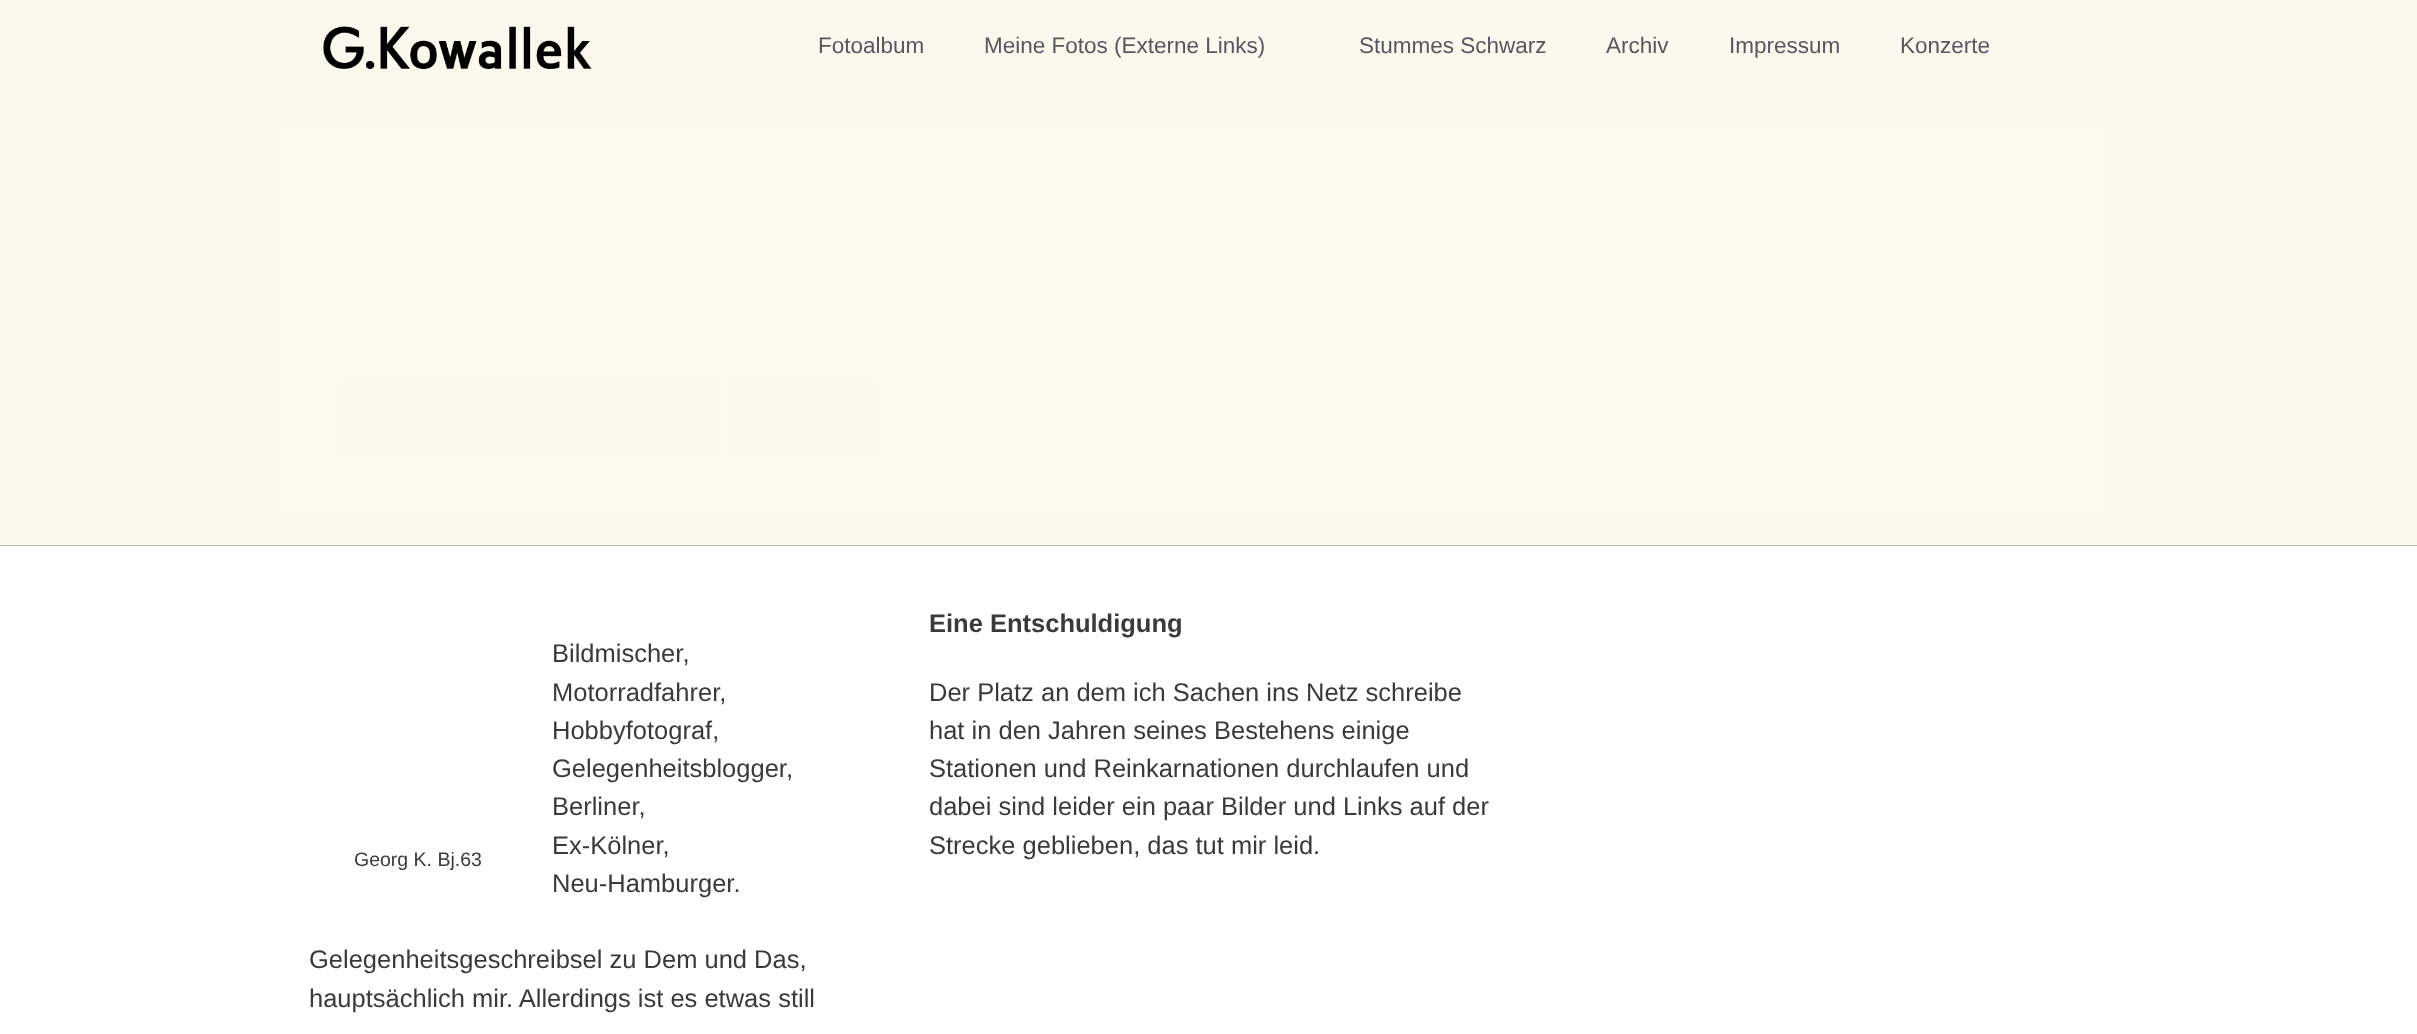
<!DOCTYPE html>
<meta charset="utf-8">
<style>body { margin: 0 } canvas { display: block }</style>
<canvas id="canvas" width="2417" height="1034"></canvas>
<script type="module">
  const canvas = document.getElementById("canvas");
  const ctx = canvas.getContext("2d");
  ctx.miterLimit = 4;
  ctx.fontKerning = "normal";
  async function loadImage(src) {
    const img = new Image();
    img.src = src;
    await img.decode();
    return img;
  }

  ctx.fillStyle = "#fcf8ed";
  ctx.fillRect(0, 0, 2417, 1034);
  ctx.drawImage(await loadImage("img1.png"), 323, 26, 269, 43);
  ctx.font = "22.5px Liberation Sans";
  ctx.fillStyle = "#575760";
  ctx.fillText("Fotoalbum", 818, 53);
  ctx.fillText("Meine Fotos (Externe Links)", 984, 53);
  ctx.fillText("Stummes Schwarz", 1359, 53);
  ctx.fillText("Archiv", 1606, 53);
  ctx.fillText("Impressum", 1729, 53);
  ctx.fillText("Konzerte", 1900, 53);
  ctx.fillStyle = "#fffaef";
  ctx.fillRect(281, 122, 1826, 391);
  ctx.fillStyle = "#fcf8ed";
  ctx.fillRect(341, 381, 379, 72);
  ctx.fillRect(728, 381, 148, 72);
  ctx.fillStyle = "#bbbbbb";
  ctx.fillRect(0, 545, 2417, 1);
  ctx.fillStyle = "#ffffff";
  ctx.fillRect(0, 546, 2417, 488);
  ctx.font = "25.5px Liberation Sans";
  ctx.fillStyle = "#3a3a3a";
  ctx.fillText("Bildmischer,", 552, 662);
  ctx.fillText("Motorradfahrer,", 552, 701);
  ctx.fillText("Hobbyfotograf,", 552, 739);
  ctx.fillText("Gelegenheitsblogger,", 552, 777);
  ctx.fillText("Berliner,", 552, 815);
  ctx.fillText("Ex-Kölner,", 552, 854);
  ctx.fillText("Neu-Hamburger.", 552, 892);
  ctx.fillText("Gelegenheitsgeschreibsel zu Dem und Das,", 309, 968);
  ctx.fillText("hauptsächlich mir. Allerdings ist es etwas still", 309, 1007);
  ctx.font = "19.5px Liberation Sans";
  ctx.fillText("Georg K. Bj.63", 354, 866);
  ctx.font = "bold 25.5px Liberation Sans";
  ctx.fillText("Eine Entschuldigung", 929, 632);
  ctx.font = "25.5px Liberation Sans";
  ctx.fillText("Der Platz an dem ich Sachen ins Netz schreibe", 929, 701);
  ctx.fillText("hat in den Jahren seines Bestehens einige", 929, 739);
  ctx.fillText("Stationen und Reinkarnationen durchlaufen und", 929, 777);
  ctx.fillText("dabei sind leider ein paar Bilder und Links auf der", 929, 815);
  ctx.fillText("Strecke geblieben, das tut mir leid.", 929, 854);
</script>
